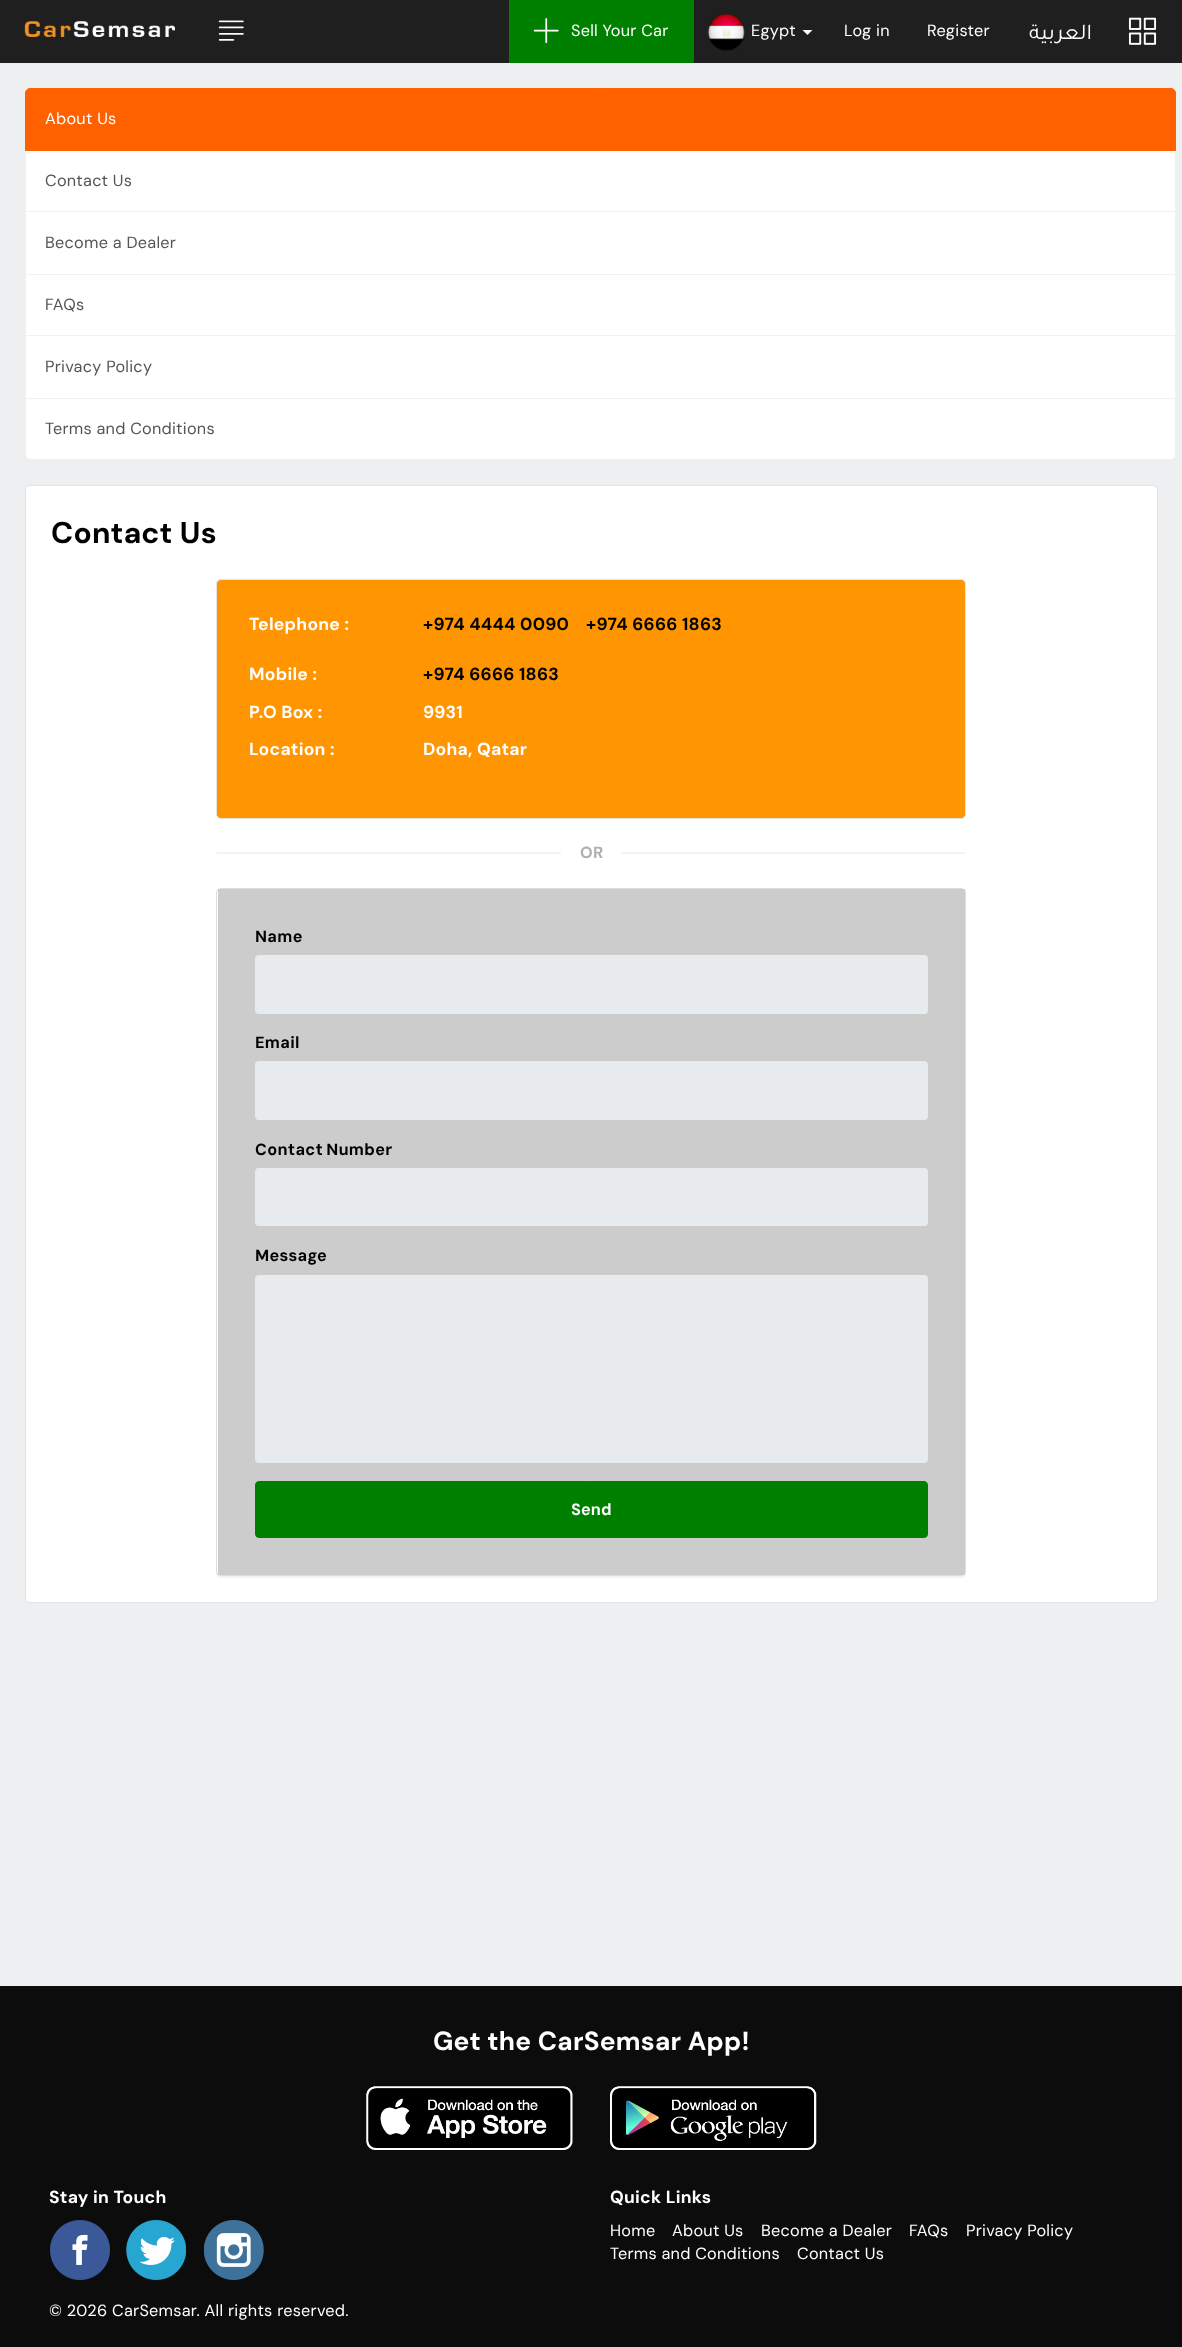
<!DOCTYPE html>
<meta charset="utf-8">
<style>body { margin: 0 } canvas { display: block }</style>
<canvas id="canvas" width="1182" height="2347"></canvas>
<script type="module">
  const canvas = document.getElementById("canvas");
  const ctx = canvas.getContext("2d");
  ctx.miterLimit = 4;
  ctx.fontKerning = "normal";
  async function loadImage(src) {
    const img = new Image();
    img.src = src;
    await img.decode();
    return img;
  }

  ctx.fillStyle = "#edeff0";
  ctx.fillRect(0, 0, 1182, 2347);
  ctx.fillStyle = "#1f1f1f";
  ctx.fillRect(0, 0, 1182, 63);
  ctx.drawImage(await loadImage("img1.png"), 24, 21, 151, 16);
  ctx.drawImage(await loadImage("img2.png"), 218, 20, 26, 21);
  ctx.fillStyle = "#008000";
  ctx.fillRect(509, 0, 185, 63);
  ctx.drawImage(await loadImage("img3.png"), 533, 18, 26, 26);
  ctx.letterSpacing = "0.25px";
  ctx.font = "16.25px DM Sans";
  ctx.fillStyle = "#ffffff";
  ctx.fillText("Sell Your Car", 571, 36);
  ctx.drawImage(await loadImage("img4.png"), 708, 14, 37, 37);
  ctx.fillText("Egypt", 751, 36);
  ctx.beginPath();
  ctx.moveTo(802.5, 30);
  ctx.lineTo(812.5, 30);
  ctx.lineTo(807.5, 35);
  ctx.closePath();
  ctx.fill();
  ctx.fillText("Log in", 844, 36);
  ctx.fillText("Register", 927, 36);
  ctx.direction = "rtl";
  ctx.font = "22.5px Tajawal";
  ctx.fillText("العربية", 1092, 39);
  ctx.drawImage(await loadImage("img5.png"), 1128, 17, 29, 28);
  ctx.fillRect(26, 151, 1149, 60);
  ctx.strokeStyle = "#f1f1f1";
  ctx.strokeRect(25.5, 150.5, 1150, 62);
  ctx.fillStyle = "#ff6000";
  ctx.beginPath();
  ctx.roundRect(25.5, 88.5, 1150, 62, [4.5, 4.5, 0, 0]);
  ctx.fill();
  ctx.strokeStyle = "#ff6000";
  ctx.stroke();
  ctx.direction = "ltr";
  ctx.font = "16.25px DM Sans";
  ctx.fillStyle = "#ffffff";
  ctx.fillText("About Us", 45, 124);
  ctx.fillStyle = "#555555";
  ctx.fillText("Contact Us", 45, 186);
  ctx.fillStyle = "#ffffff";
  ctx.beginPath();
  ctx.rect(25.5, 211.5, 1150, 63);
  ctx.fill();
  ctx.strokeStyle = "#f1f1f1";
  ctx.stroke();
  ctx.fillStyle = "#555555";
  ctx.fillText("Become a Dealer", 45, 248);
  ctx.fillStyle = "#ffffff";
  ctx.beginPath();
  ctx.rect(25.5, 274.5, 1150, 61);
  ctx.fill();
  ctx.stroke();
  ctx.fillStyle = "#555555";
  ctx.fillText("FAQs", 45, 310);
  ctx.fillStyle = "#ffffff";
  ctx.beginPath();
  ctx.rect(25.5, 335.5, 1150, 63);
  ctx.fill();
  ctx.stroke();
  ctx.fillStyle = "#555555";
  ctx.fillText("Privacy Policy", 45, 372);
  ctx.fillStyle = "#ffffff";
  ctx.beginPath();
  ctx.roundRect(25.5, 398.5, 1150, 61, [0, 0, 4.5, 4.5]);
  ctx.fill();
  ctx.stroke();
  ctx.fillStyle = "#555555";
  ctx.fillText("Terms and Conditions", 45, 434);
  ctx.fillStyle = "#ffffff";
  ctx.beginPath();
  ctx.roundRect(25.5, 485.5, 1132, 1117, 4.5);
  ctx.fill();
  ctx.strokeStyle = "#e4e4e4";
  ctx.stroke();
  ctx.font = "bold 30px DM Sans";
  ctx.fillStyle = "#000000";
  ctx.fillText("Contact Us", 51, 543);
  ctx.fillStyle = "#ff9501";
  ctx.beginPath();
  ctx.roundRect(216.5, 579.5, 749, 239, 4.5);
  ctx.fill();
  ctx.stroke();
  ctx.font = "bold 17.5px 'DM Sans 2'";
  ctx.fillStyle = "#ffffff";
  ctx.fillText("Telephone :", 249, 630);
  ctx.fillStyle = "#000000";
  ctx.fillText("+974 4444 0090", 423, 630);
  ctx.fillText("+974 6666 1863", 586, 630);
  ctx.fillStyle = "#ffffff";
  ctx.fillText("Mobile :", 249, 680);
  ctx.fillStyle = "#000000";
  ctx.fillText("+974 6666 1863", 423, 680);
  ctx.fillStyle = "#ffffff";
  ctx.fillText("P.O Box :", 249, 718);
  ctx.fillText("9931", 423, 718);
  ctx.fillText("Location :", 249, 755);
  ctx.fillText("Doha, Qatar", 423, 755);
  ctx.drawImage(await loadImage("img6.png"), 216, 852, 750, 2);
  ctx.fillRect(561, 852, 60, 2);
  ctx.font = "bold 16.25px 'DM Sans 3'";
  ctx.fillStyle = "#afafaf";
  ctx.fillText("OR", 580, 858);
  ctx.fillStyle = "rgba(0, 0, 0, 0.05)";
  ctx.filter = "blur(0.5px)";
  ctx.beginPath();
  ctx.roundRect(216, 889, 750, 689, 5);
  ctx.fill();
  ctx.filter = "none";
  ctx.fillStyle = "#ffffff";
  ctx.beginPath();
  ctx.roundRect(216.5, 888.5, 749, 687, 4.5);
  ctx.fill();
  ctx.strokeStyle = "#dddddd";
  ctx.stroke();
  ctx.fillStyle = "#cccccc";
  ctx.fillRect(218, 889, 747, 686);
  ctx.font = "bold 16.25px 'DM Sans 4'";
  ctx.fillStyle = "#000000";
  ctx.fillText("Name", 255, 942);
  ctx.fillStyle = "#e8ebed";
  ctx.beginPath();
  ctx.roundRect(256.5, 956.5, 670, 56, 2.5);
  ctx.fill();
  ctx.strokeStyle = "#e8ebed";
  ctx.lineWidth = 3;
  ctx.stroke();
  ctx.fillStyle = "#000000";
  ctx.fillText("Email", 255, 1048);
  ctx.fillStyle = "#e8ebed";
  ctx.beginPath();
  ctx.roundRect(256.5, 1062.5, 670, 56, 2.5);
  ctx.fill();
  ctx.stroke();
  ctx.wordSpacing = "-1px";
  ctx.fillStyle = "#000000";
  ctx.fillText("Contact Number", 255, 1155);
  ctx.fillStyle = "#e8ebed";
  ctx.beginPath();
  ctx.roundRect(256.5, 1169.5, 670, 55, 2.5);
  ctx.fill();
  ctx.stroke();
  ctx.wordSpacing = "0px";
  ctx.fillStyle = "#000000";
  ctx.fillText("Message", 255, 1261);
  ctx.fillStyle = "#e8ebed";
  ctx.beginPath();
  ctx.roundRect(256.5, 1276.5, 670, 185, 2.5);
  ctx.fill();
  ctx.stroke();
  ctx.fillStyle = "#008000";
  ctx.beginPath();
  ctx.roundRect(255.5, 1481.5, 672, 56, 3.5);
  ctx.fill();
  ctx.strokeStyle = "#008000";
  ctx.lineWidth = 1;
  ctx.stroke();
  ctx.letterSpacing = "0px";
  ctx.fillStyle = "#ffffff";
  ctx.fillText("Send", 571, 1515);
  ctx.fillStyle = "#0c0c0c";
  ctx.fillRect(0, 1986, 1182, 361);
  ctx.letterSpacing = "0.25px";
  ctx.font = "bold 26.25px 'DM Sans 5'";
  ctx.fillStyle = "#ffffff";
  ctx.fillText("Get the CarSemsar App!", 433, 2050);
  ctx.drawImage(await loadImage("img7.png"), 366, 2086, 207, 64);
  ctx.drawImage(await loadImage("img8.png"), 610, 2086, 207, 64);
  ctx.font = "bold 17.5px 'DM Sans 2'";
  ctx.fillText("Stay in Touch", 49, 2203);
  ctx.drawImage(await loadImage("img9.png"), 50, 2220, 60, 60);
  ctx.drawImage(await loadImage("img10.png"), 126, 2220, 60, 60);
  ctx.drawImage(await loadImage("img11.png"), 204, 2220, 60, 60);
  ctx.fillText("Quick Links", 610, 2203);
  ctx.font = "16.25px DM Sans";
  ctx.fillText("Home", 610, 2236);
  ctx.fillText("About Us", 672, 2236);
  ctx.fillText("Become a Dealer", 761, 2236);
  ctx.fillText("FAQs", 909, 2236);
  ctx.fillText("Privacy Policy", 966, 2236);
  ctx.fillText("Terms and Conditions", 610, 2259);
  ctx.fillText("Contact Us", 797, 2259);
  ctx.fillText("© 2026 CarSemsar. All rights reserved.", 49, 2316);
</script>
